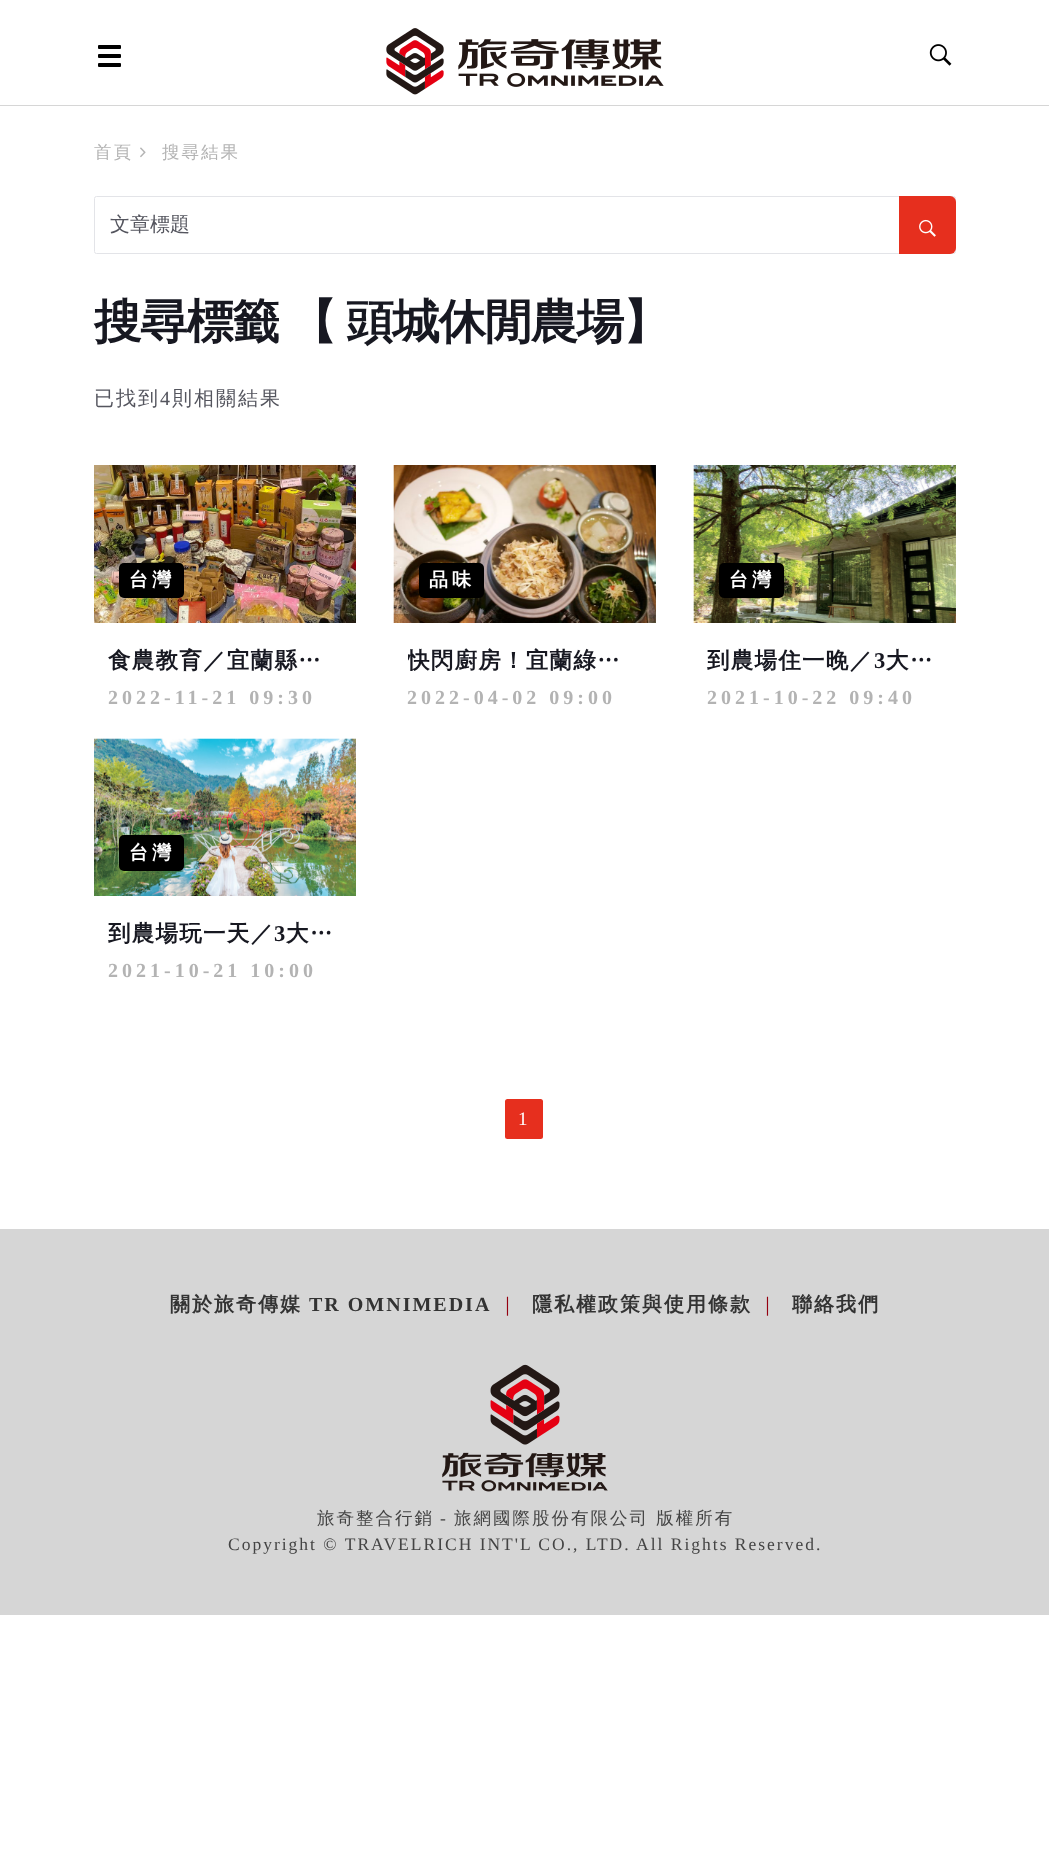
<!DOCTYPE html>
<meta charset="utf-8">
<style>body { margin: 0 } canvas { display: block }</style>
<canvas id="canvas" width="1049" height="1867"></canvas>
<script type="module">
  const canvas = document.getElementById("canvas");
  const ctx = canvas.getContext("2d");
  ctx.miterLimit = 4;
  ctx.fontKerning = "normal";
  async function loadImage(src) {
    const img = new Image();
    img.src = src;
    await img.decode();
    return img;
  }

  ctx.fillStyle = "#ffffff";
  ctx.fillRect(0, 0, 1049, 1867);
  ctx.fillStyle = "#d6d6d6";
  ctx.fillRect(0, 105, 1049, 1);
  ctx.fillStyle = "#000000";
  ctx.beginPath();
  ctx.roundRect(98, 54, 23, 4, 1);
  ctx.fill();
  ctx.beginPath();
  ctx.roundRect(98, 45, 23, 4, 1);
  ctx.fill();
  ctx.beginPath();
  ctx.roundRect(98, 63, 23, 4, 1);
  ctx.fill();
  ctx.drawImage(await loadImage("img1.png"), 386, 28, 278, 67);
  ctx.drawImage(await loadImage("img2.png"), 929, 44, 23, 22);
  ctx.letterSpacing = "2px";
  ctx.font = "500 17.5px WenQuanYi Zen Hei";
  ctx.fillStyle = "#b3b3b3";
  ctx.fillText("首頁", 94, 158);
  ctx.drawImage(await loadImage("img3.png"), 140, 147, 6, 11);
  ctx.fillText("搜尋結果", 162, 158);
  ctx.beginPath();
  ctx.roundRect(94.5, 196.5, 861, 57, 2);
  ctx.strokeStyle = "#e3e4e8";
  ctx.stroke();
  ctx.letterSpacing = "0px";
  ctx.font = "500 20px WenQuanYi Zen Hei";
  ctx.fillStyle = "#54555e";
  ctx.fillText("文章標題", 110, 231);
  ctx.fillStyle = "#e62f1e";
  ctx.beginPath();
  ctx.roundRect(899, 196, 57, 58, [0, 6, 6, 0]);
  ctx.fill();
  ctx.drawImage(await loadImage("img4.png"), 919, 219, 17, 18);
  ctx.letterSpacing = "-1.4px";
  ctx.wordSpacing = "-2px";
  ctx.font = "bold 47.5px WenQuanYi Zen Hei";
  ctx.fillStyle = "#171821";
  ctx.fillText("搜尋標籤 【 頭城休閒農場】", 94, 338);
  ctx.letterSpacing = "2px";
  ctx.wordSpacing = "0px";
  ctx.font = "500 20px WenQuanYi Zen Hei";
  ctx.fillStyle = "#54555e";
  ctx.fillText("已找到", 94, 405);
  ctx.font = "20px Liberation Serif";
  ctx.fillText("4", 160, 405);
  ctx.font = "500 20px WenQuanYi Zen Hei";
  ctx.fillText("則相關結果", 172, 405);
  ctx.drawImage(await loadImage("img5.png"), 94, 465, 262, 158);
  ctx.fillStyle = "#000000";
  ctx.beginPath();
  ctx.roundRect(119, 563, 65, 35, 5);
  ctx.fill();
  ctx.letterSpacing = "4px";
  ctx.font = "bold 19px WenQuanYi Zen Hei";
  ctx.fillStyle = "#ffffff";
  ctx.fillText("台灣", 129, 586);
  ctx.letterSpacing = "1.25px";
  ctx.font = "bold 22.5px WenQuanYi Zen Hei";
  ctx.fillStyle = "#171821";
  ctx.fillText("食農教育／宜蘭縣…", 108, 668);
  ctx.letterSpacing = "4px";
  ctx.font = "bold 20px Liberation Serif";
  ctx.fillStyle = "#b3b3b3";
  ctx.fillText("2022-11-21 09:30", 108, 704);
  ctx.drawImage(await loadImage("img6.png"), 393, 465, 263, 158);
  ctx.fillStyle = "#000000";
  ctx.beginPath();
  ctx.roundRect(419, 563, 65, 35, 5);
  ctx.fill();
  ctx.font = "bold 19px WenQuanYi Zen Hei";
  ctx.fillStyle = "#ffffff";
  ctx.fillText("品味", 429, 586);
  ctx.save();
  ctx.beginPath();
  ctx.rect(408, 645, 235, 33);
  ctx.clip();
  ctx.letterSpacing = "1.25px";
  ctx.font = "bold 22.5px WenQuanYi Zen Hei";
  ctx.fillStyle = "#171821";
  ctx.fillText("快閃廚房！宜蘭綠…", 407, 668);
  ctx.restore();
  ctx.font = "bold 20px Liberation Serif";
  ctx.fillStyle = "#b3b3b3";
  ctx.fillText("2022-04-02 09:00", 407, 704);
  ctx.drawImage(await loadImage("img7.png"), 693, 465, 263, 158);
  ctx.fillStyle = "#000000";
  ctx.beginPath();
  ctx.roundRect(719, 563, 65, 35, 5);
  ctx.fill();
  ctx.font = "bold 19px WenQuanYi Zen Hei";
  ctx.fillStyle = "#ffffff";
  ctx.fillText("台灣", 729, 586);
  ctx.letterSpacing = "1.25px";
  ctx.font = "bold 22.5px WenQuanYi Zen Hei";
  ctx.fillStyle = "#171821";
  ctx.fillText("到農場住一晚／", 707, 668);
  ctx.font = "bold 22.5px Liberation Serif";
  ctx.fillText("3", 874, 668);
  ctx.font = "bold 22.5px WenQuanYi Zen Hei";
  ctx.fillText("大…", 886, 668);
  ctx.letterSpacing = "4px";
  ctx.font = "bold 20px Liberation Serif";
  ctx.fillStyle = "#b3b3b3";
  ctx.fillText("2021-10-22 09:40", 707, 704);
  ctx.drawImage(await loadImage("img8.png"), 94, 738, 262, 158);
  ctx.fillStyle = "#000000";
  ctx.beginPath();
  ctx.roundRect(119, 835, 65, 36, 5);
  ctx.fill();
  ctx.font = "bold 19px WenQuanYi Zen Hei";
  ctx.fillStyle = "#ffffff";
  ctx.fillText("台灣", 129, 859);
  ctx.letterSpacing = "1.25px";
  ctx.font = "bold 22.5px WenQuanYi Zen Hei";
  ctx.fillStyle = "#171821";
  ctx.fillText("到農場玩一天／", 108, 941);
  ctx.font = "bold 22.5px Liberation Serif";
  ctx.fillText("3", 274, 941);
  ctx.font = "bold 22.5px WenQuanYi Zen Hei";
  ctx.fillText("大…", 286, 941);
  ctx.letterSpacing = "4px";
  ctx.font = "bold 20px Liberation Serif";
  ctx.fillStyle = "#b3b3b3";
  ctx.fillText("2021-10-21 10:00", 108, 977);
  ctx.fillStyle = "#e62f1e";
  ctx.beginPath();
  ctx.roundRect(505, 1099, 38, 40, 2.5);
  ctx.fill();
  ctx.letterSpacing = "2px";
  ctx.font = "19px Liberation Serif";
  ctx.fillStyle = "#ffffff";
  ctx.fillText("1", 518, 1125);
  ctx.fillStyle = "#d6d6d6";
  ctx.fillRect(0, 1229, 1049, 386);
  ctx.font = "bold 20px WenQuanYi Zen Hei";
  ctx.fillStyle = "#333333";
  ctx.fillText("關於旅奇傳媒", 170, 1311);
  ctx.font = "bold 20px Liberation Serif";
  ctx.fillText("TR OMNIMEDIA", 309, 1311);
  ctx.font = "500 19px WenQuanYi Zen Hei";
  ctx.fillStyle = "#950010";
  ctx.fillText("｜", 498, 1311);
  ctx.font = "bold 20px WenQuanYi Zen Hei";
  ctx.fillStyle = "#333333";
  ctx.fillText("隱私權政策與使用條款", 532, 1311);
  ctx.font = "500 19px WenQuanYi Zen Hei";
  ctx.fillStyle = "#950010";
  ctx.fillText("｜", 758, 1311);
  ctx.font = "bold 20px WenQuanYi Zen Hei";
  ctx.fillStyle = "#333333";
  ctx.fillText("聯絡我們", 792, 1311);
  ctx.drawImage(await loadImage("img9.png"), 442, 1364, 166, 128);
  ctx.font = "500 17.5px WenQuanYi Zen Hei";
  ctx.fillStyle = "#444444";
  ctx.fillText("旅奇整合行銷", 317, 1524);
  ctx.font = "17.5px Liberation Serif";
  ctx.fillText("-", 440, 1524);
  ctx.font = "500 17.5px WenQuanYi Zen Hei";
  ctx.fillText("旅網國際股份有限公司 版權所有", 454, 1524);
  ctx.font = "17.5px Liberation Serif";
  ctx.fillText("Copyright © TRAVELRICH INT'L CO., LTD. All Rights Reserved.", 228, 1550);
</script>
